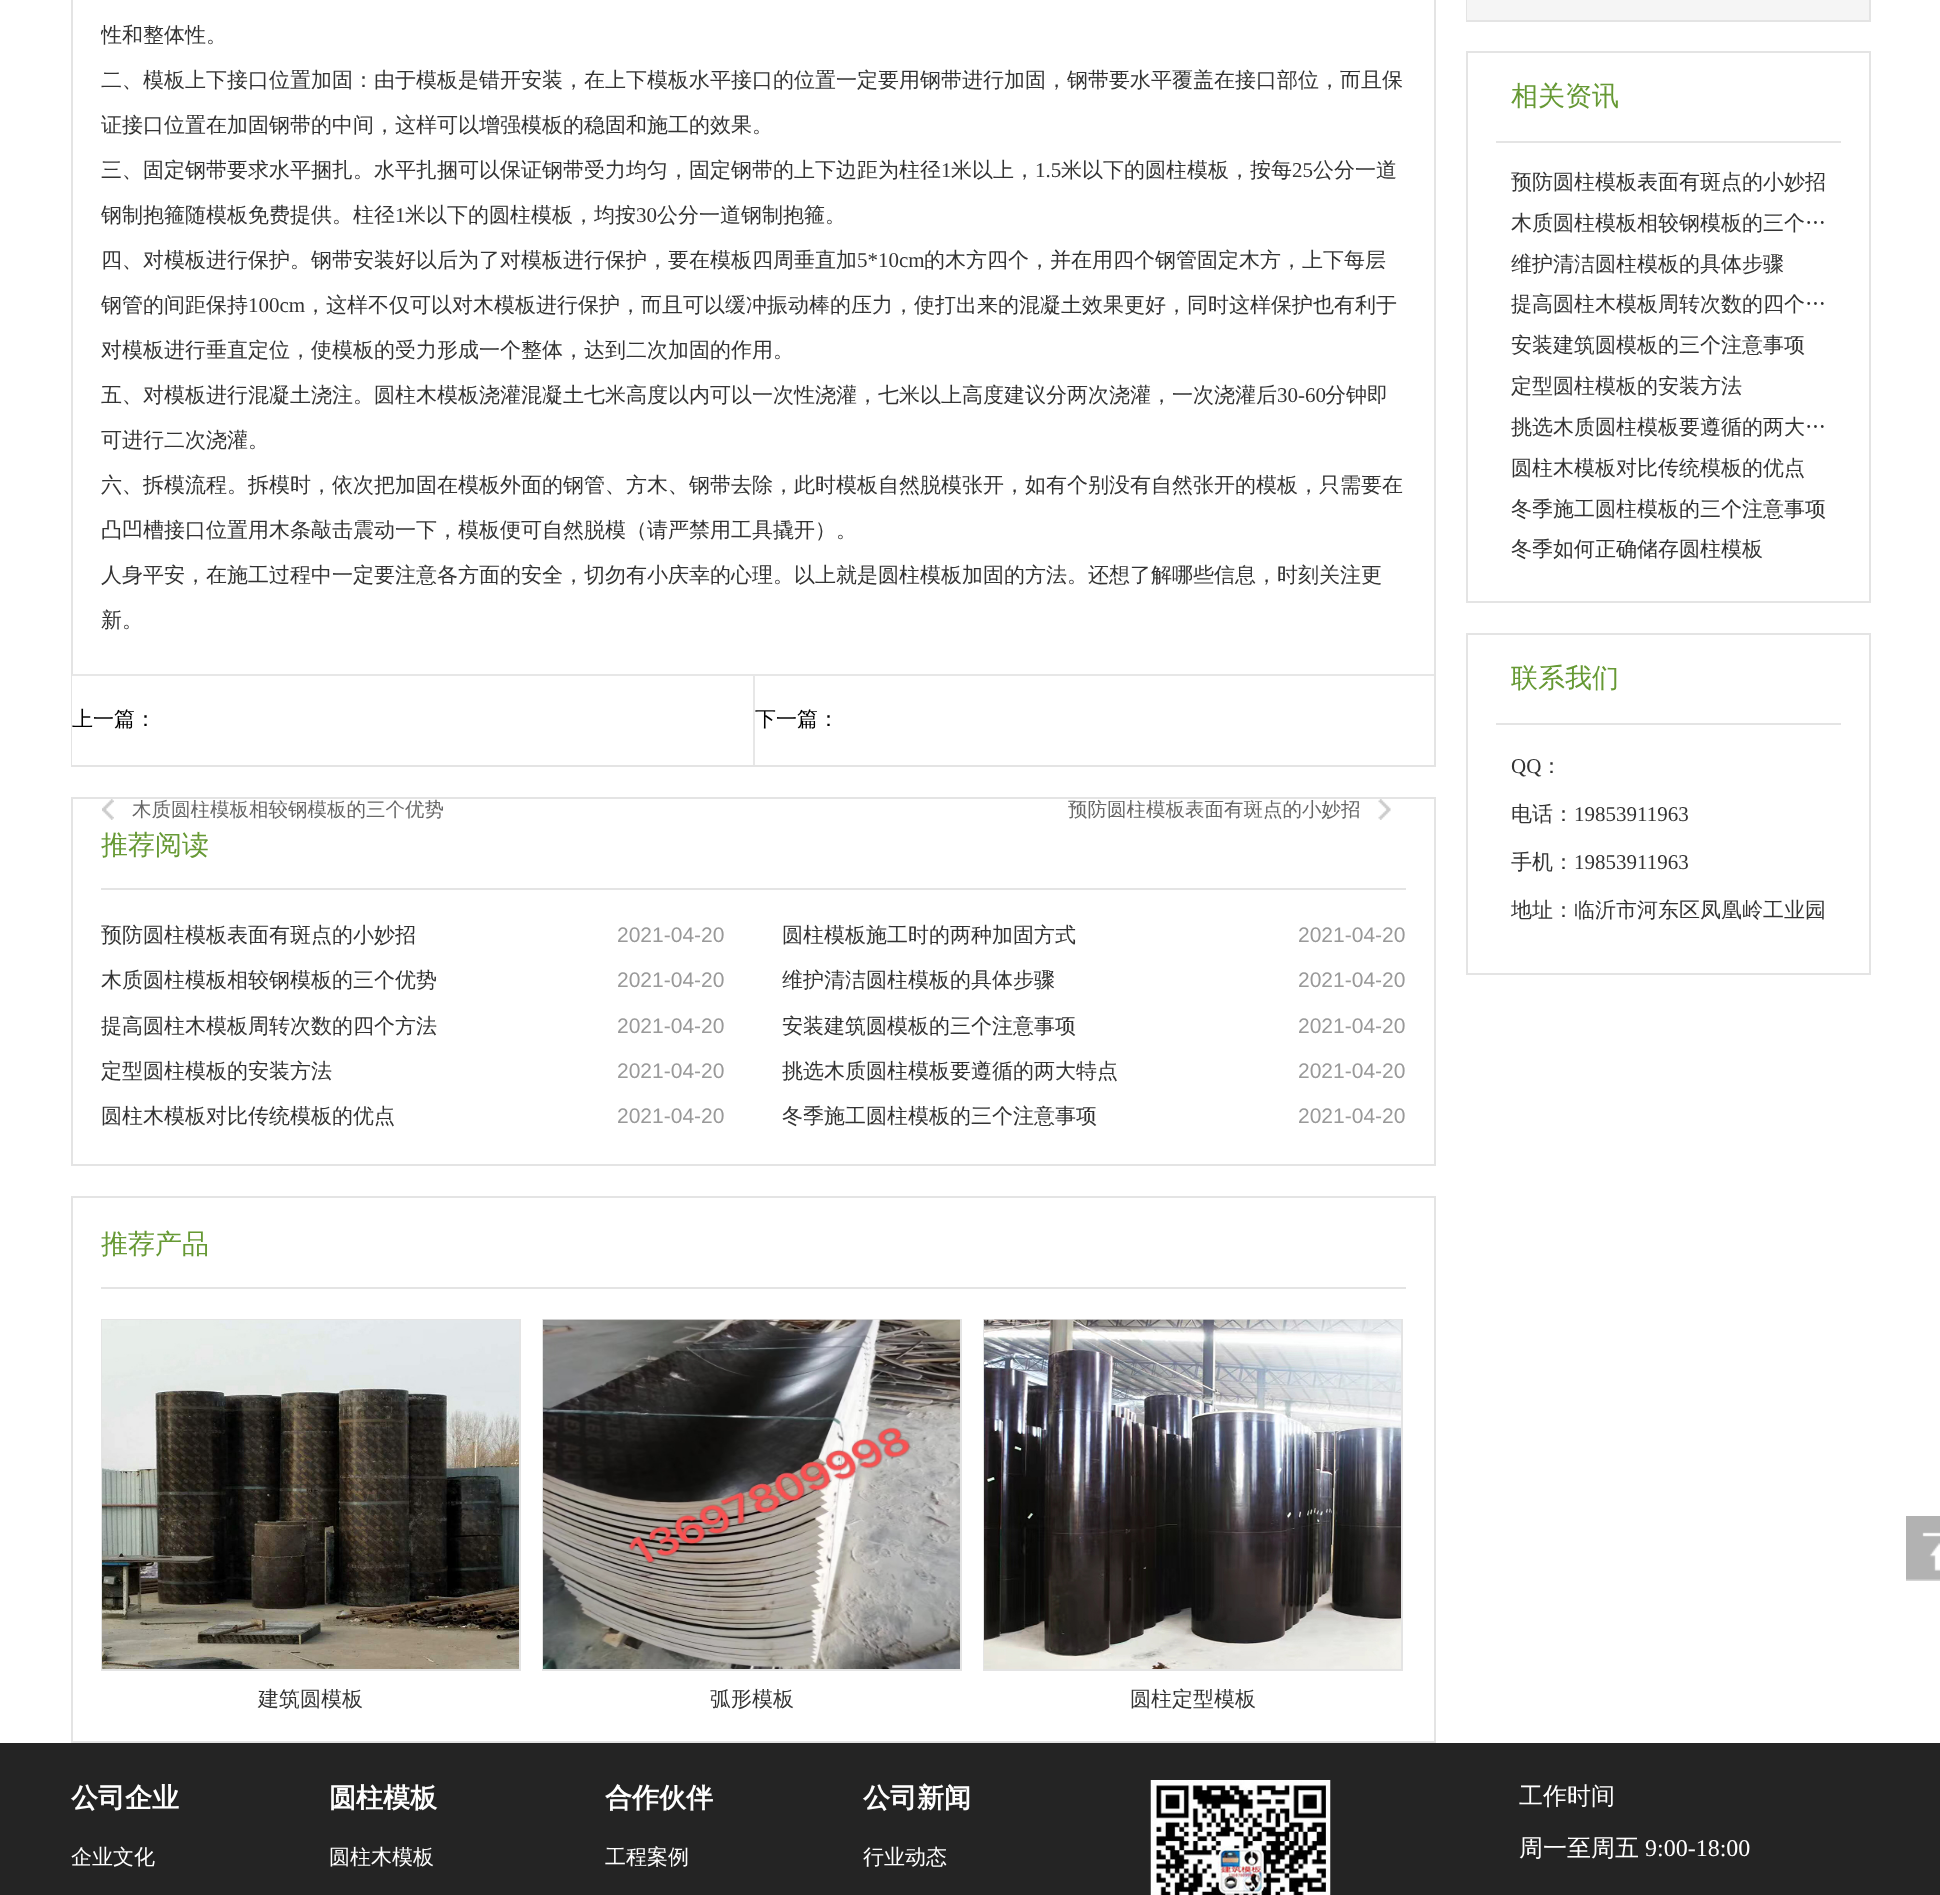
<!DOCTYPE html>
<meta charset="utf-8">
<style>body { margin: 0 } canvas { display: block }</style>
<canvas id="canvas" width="1940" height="1895"></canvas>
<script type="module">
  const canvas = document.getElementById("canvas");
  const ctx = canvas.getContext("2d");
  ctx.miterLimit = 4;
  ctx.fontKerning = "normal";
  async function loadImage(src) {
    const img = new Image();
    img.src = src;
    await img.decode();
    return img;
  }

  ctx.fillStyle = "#ffffff";
  ctx.fillRect(0, 0, 1940, 1895);
  ctx.strokeStyle = "#e4e4e4";
  ctx.lineWidth = 2;
  ctx.strokeRect(72, -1, 1363, 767);
  ctx.save();
  ctx.beginPath();
  ctx.rect(101, 0, 1305, 674);
  ctx.clip();
  ctx.font = "500 21px WenQuanYi Zen Hei";
  ctx.fillStyle = "#333333";
  ctx.fillText("性和整体性。", 101, 42);
  ctx.restore();
  ctx.font = "500 21px WenQuanYi Zen Hei";
  ctx.fillStyle = "#333333";
  ctx.fillText("二、模板上下接口位置加固：由于模板是错开安装，在上下模板水平接口的位置一定要用钢带进行加固，钢带要水平覆盖在接口部位，而且保", 101, 87);
  ctx.fillText("证接口位置在加固钢带的中间，这样可以增强模板的稳固和施工的效果。", 101, 132);
  ctx.fillText("三、固定钢带要求水平捆扎。水平扎捆可以保证钢带受力均匀，固定钢带的上下边距为柱径", 101, 177);
  ctx.font = "21px Liberation Serif";
  ctx.fillText("1", 941, 177);
  ctx.font = "500 21px WenQuanYi Zen Hei";
  ctx.fillText("米以上，", 951, 177);
  ctx.font = "21px Liberation Serif";
  ctx.fillText("1.5", 1035, 177);
  ctx.font = "500 21px WenQuanYi Zen Hei";
  ctx.fillText("米以下的圆柱模板，按每", 1061, 177);
  ctx.font = "21px Liberation Serif";
  ctx.fillText("25", 1292, 177);
  ctx.font = "500 21px WenQuanYi Zen Hei";
  ctx.fillText("公分一道", 1313, 177);
  ctx.fillText("钢制抱箍随模板免费提供。柱径", 101, 222);
  ctx.font = "21px Liberation Serif";
  ctx.fillText("1", 395, 222);
  ctx.font = "500 21px WenQuanYi Zen Hei";
  ctx.fillText("米以下的圆柱模板，均按", 405, 222);
  ctx.font = "21px Liberation Serif";
  ctx.fillText("30", 636, 222);
  ctx.font = "500 21px WenQuanYi Zen Hei";
  ctx.fillText("公分一道钢制抱箍。", 657, 222);
  ctx.fillText("四、对模板进行保护。钢带安装好以后为了对模板进行保护，要在模板四周垂直加", 101, 267);
  ctx.font = "21px Liberation Serif";
  ctx.fillText("5*10cm", 857, 267);
  ctx.font = "500 21px WenQuanYi Zen Hei";
  ctx.fillText("的木方四个，并在用四个钢管固定木方，上下每层", 924, 267);
  ctx.fillText("钢管的间距保持", 101, 312);
  ctx.font = "21px Liberation Serif";
  ctx.fillText("100cm", 248, 312);
  ctx.font = "500 21px WenQuanYi Zen Hei";
  ctx.fillText("，这样不仅可以对木模板进行保护，而且可以缓冲振动棒的压力，使打出来的混凝土效果更好，同时这样保护也有利于", 305, 312);
  ctx.fillText("对模板进行垂直定位，使模板的受力形成一个整体，达到二次加固的作用。", 101, 357);
  ctx.fillText("五、对模板进行混凝土浇注。圆柱木模板浇灌混凝土七米高度以内可以一次性浇灌，七米以上高度建议分两次浇灌，一次浇灌后", 101, 402);
  ctx.font = "21px Liberation Serif";
  ctx.fillText("30-60", 1277, 402);
  ctx.font = "500 21px WenQuanYi Zen Hei";
  ctx.fillText("分钟即", 1325, 402);
  ctx.fillText("可进行二次浇灌。", 101, 447);
  ctx.fillText("六、拆模流程。拆模时，依次把加固在模板外面的钢管、方木、钢带去除，此时模板自然脱模张开，如有个别没有自然张开的模板，只需要在", 101, 492);
  ctx.fillText("凸凹槽接口位置用木条敲击震动一下，模板便可自然脱模（请严禁用工具撬开）。", 101, 537);
  ctx.fillText("人身平安，在施工过程中一定要注意各方面的安全，切勿有小庆幸的心理。以上就是圆柱模板加固的方法。还想了解哪些信息，时刻关注更", 101, 582);
  ctx.fillText("新。", 101, 627);
  ctx.fillStyle = "#ffffff";
  ctx.fillRect(72, 676, 1, 89);
  ctx.fillStyle = "#e7e7e7";
  ctx.fillRect(72, 674, 1362, 2);
  ctx.fillStyle = "#000000";
  ctx.fillText("上一篇：", 72, 726);
  ctx.strokeRect(72, 798, 1363, 367);
  ctx.drawImage(await loadImage("img1.png"), 102, 799, 12, 21);
  ctx.font = "500 19.5px WenQuanYi Zen Hei";
  ctx.fillStyle = "#666666";
  ctx.fillText("木质圆柱模板相较钢模板的三个优势", 132, 816);
  ctx.fillStyle = "#e7e7e7";
  ctx.fillRect(753, 675, 2, 90);
  ctx.font = "500 21px WenQuanYi Zen Hei";
  ctx.fillStyle = "#000000";
  ctx.fillText("下一篇：", 755, 726);
  ctx.drawImage(await loadImage("img2.png"), 1378, 799, 13, 21);
  ctx.font = "500 19.5px WenQuanYi Zen Hei";
  ctx.fillStyle = "#666666";
  ctx.fillText("预防圆柱模板表面有斑点的小妙招", 1068, 816);
  ctx.fillStyle = "#e4e4e4";
  ctx.fillRect(101, 888, 1305, 2);
  ctx.font = "500 27px WenQuanYi Zen Hei";
  ctx.fillStyle = "#669934";
  ctx.fillText("推荐阅读", 101, 854);
  ctx.save();
  ctx.beginPath();
  ctx.rect(101, 923, 453, 25);
  ctx.clip();
  ctx.font = "500 21px WenQuanYi Zen Hei";
  ctx.fillStyle = "#333333";
  ctx.fillText("预防圆柱模板表面有斑点的小妙招", 101, 942);
  ctx.restore();
  ctx.font = "21px Liberation Sans";
  ctx.fillStyle = "#999999";
  ctx.fillText("2021-04-20", 617, 942);
  ctx.font = "500 21px WenQuanYi Zen Hei";
  ctx.fillStyle = "#333333";
  ctx.fillText("圆柱模板施工时的两种加固方式", 782, 942);
  ctx.font = "21px Liberation Sans";
  ctx.fillStyle = "#999999";
  ctx.fillText("2021-04-20", 1298, 942);
  ctx.font = "500 21px WenQuanYi Zen Hei";
  ctx.fillStyle = "#333333";
  ctx.fillText("木质圆柱模板相较钢模板的三个优势", 101, 987);
  ctx.font = "21px Liberation Sans";
  ctx.fillStyle = "#999999";
  ctx.fillText("2021-04-20", 617, 987);
  ctx.font = "500 21px WenQuanYi Zen Hei";
  ctx.fillStyle = "#333333";
  ctx.fillText("维护清洁圆柱模板的具体步骤", 782, 987);
  ctx.font = "21px Liberation Sans";
  ctx.fillStyle = "#999999";
  ctx.fillText("2021-04-20", 1298, 987);
  ctx.font = "500 21px WenQuanYi Zen Hei";
  ctx.fillStyle = "#333333";
  ctx.fillText("提高圆柱木模板周转次数的四个方法", 101, 1033);
  ctx.font = "21px Liberation Sans";
  ctx.fillStyle = "#999999";
  ctx.fillText("2021-04-20", 617, 1033);
  ctx.font = "500 21px WenQuanYi Zen Hei";
  ctx.fillStyle = "#333333";
  ctx.fillText("安装建筑圆模板的三个注意事项", 782, 1033);
  ctx.font = "21px Liberation Sans";
  ctx.fillStyle = "#999999";
  ctx.fillText("2021-04-20", 1298, 1033);
  ctx.font = "500 21px WenQuanYi Zen Hei";
  ctx.fillStyle = "#333333";
  ctx.fillText("定型圆柱模板的安装方法", 101, 1078);
  ctx.font = "21px Liberation Sans";
  ctx.fillStyle = "#999999";
  ctx.fillText("2021-04-20", 617, 1078);
  ctx.font = "500 21px WenQuanYi Zen Hei";
  ctx.fillStyle = "#333333";
  ctx.fillText("挑选木质圆柱模板要遵循的两大特点", 782, 1078);
  ctx.font = "21px Liberation Sans";
  ctx.fillStyle = "#999999";
  ctx.fillText("2021-04-20", 1298, 1078);
  ctx.font = "500 21px WenQuanYi Zen Hei";
  ctx.fillStyle = "#333333";
  ctx.fillText("圆柱木模板对比传统模板的优点", 101, 1123);
  ctx.font = "21px Liberation Sans";
  ctx.fillStyle = "#999999";
  ctx.fillText("2021-04-20", 617, 1123);
  ctx.font = "500 21px WenQuanYi Zen Hei";
  ctx.fillStyle = "#333333";
  ctx.fillText("冬季施工圆柱模板的三个注意事项", 782, 1123);
  ctx.font = "21px Liberation Sans";
  ctx.fillStyle = "#999999";
  ctx.fillText("2021-04-20", 1298, 1123);
  ctx.strokeRect(72, 1197, 1363, 545);
  ctx.fillStyle = "#e4e4e4";
  ctx.fillRect(101, 1287, 1305, 2);
  ctx.font = "500 27px WenQuanYi Zen Hei";
  ctx.fillStyle = "#669934";
  ctx.fillText("推荐产品", 101, 1253);
  ctx.strokeRect(102, 1320, 418, 350);
  ctx.drawImage(await loadImage("img3.png"), 102, 1320, 417, 349);
  ctx.font = "500 21px WenQuanYi Zen Hei";
  ctx.fillStyle = "#333333";
  ctx.fillText("建筑圆模板", 258, 1706);
  ctx.strokeRect(543, 1320, 418, 350);
  ctx.drawImage(await loadImage("img4.png"), 543, 1319, 417, 350);
  ctx.fillText("弧形模板", 710, 1706);
  ctx.strokeRect(984, 1320, 418, 350);
  ctx.drawImage(await loadImage("img5.png"), 984, 1319, 417, 350);
  ctx.fillText("圆柱定型模板", 1130, 1706);
  ctx.fillStyle = "#e4e4e4";
  ctx.fillRect(1869, 0, 2, 21);
  ctx.fillRect(1466, 20, 405, 2);
  ctx.fillRect(1466, 0, 2, 21);
  ctx.fillStyle = "#f5f5f5";
  ctx.fillRect(1467, 0, 402, 20);
  ctx.strokeRect(1467, 52, 403, 550);
  ctx.fillStyle = "#e4e4e4";
  ctx.fillRect(1496, 141, 345, 2);
  ctx.font = "500 27px WenQuanYi Zen Hei";
  ctx.fillStyle = "#669934";
  ctx.fillText("相关资讯", 1511, 105);
  ctx.font = "500 21px WenQuanYi Zen Hei";
  ctx.fillStyle = "#333333";
  ctx.fillText("预防圆柱模板表面有斑点的小妙招", 1511, 189);
  ctx.fillText("木质圆柱模板相较钢模板的三个…", 1511, 230);
  ctx.fillText("维护清洁圆柱模板的具体步骤", 1511, 271);
  ctx.fillText("提高圆柱木模板周转次数的四个…", 1511, 311);
  ctx.fillText("安装建筑圆模板的三个注意事项", 1511, 352);
  ctx.fillText("定型圆柱模板的安装方法", 1511, 393);
  ctx.fillText("挑选木质圆柱模板要遵循的两大…", 1511, 434);
  ctx.fillText("圆柱木模板对比传统模板的优点", 1511, 475);
  ctx.fillText("冬季施工圆柱模板的三个注意事项", 1511, 516);
  ctx.fillText("冬季如何正确储存圆柱模板", 1511, 556);
  ctx.strokeRect(1467, 634, 403, 340);
  ctx.fillStyle = "#e4e4e4";
  ctx.fillRect(1496, 723, 345, 2);
  ctx.font = "500 27px WenQuanYi Zen Hei";
  ctx.fillStyle = "#669934";
  ctx.fillText("联系我们", 1511, 687);
  ctx.font = "21px Liberation Serif";
  ctx.fillStyle = "#333333";
  ctx.fillText("QQ", 1511, 773);
  ctx.font = "500 21px WenQuanYi Zen Hei";
  ctx.fillText("：", 1541, 773);
  ctx.fillText("电话：", 1511, 821);
  ctx.font = "21px Liberation Serif";
  ctx.fillText("19853911963", 1574, 821);
  ctx.font = "500 21px WenQuanYi Zen Hei";
  ctx.fillText("手机：", 1511, 869);
  ctx.font = "21px Liberation Serif";
  ctx.fillText("19853911963", 1574, 869);
  ctx.font = "500 21px WenQuanYi Zen Hei";
  ctx.fillText("地址：临沂市河东区凤凰岭工业园", 1511, 917);
  ctx.drawImage(await loadImage("img6.png"), 1906, 1516, 34, 65);
  ctx.fillStyle = "#242424";
  ctx.fillRect(0, 1743, 1940, 152);
  ctx.font = "bold 27px WenQuanYi Zen Hei";
  ctx.fillStyle = "#ffffff";
  ctx.fillText("公司企业", 71, 1807);
  ctx.font = "500 21px WenQuanYi Zen Hei";
  ctx.fillText("企业文化", 71, 1864);
  ctx.font = "bold 27px WenQuanYi Zen Hei";
  ctx.fillText("圆柱模板", 329, 1807);
  ctx.font = "500 21px WenQuanYi Zen Hei";
  ctx.fillText("圆柱木模板", 329, 1864);
  ctx.font = "bold 27px WenQuanYi Zen Hei";
  ctx.fillText("合作伙伴", 605, 1807);
  ctx.font = "500 21px WenQuanYi Zen Hei";
  ctx.fillText("工程案例", 605, 1864);
  ctx.font = "bold 27px WenQuanYi Zen Hei";
  ctx.fillText("公司新闻", 863, 1807);
  ctx.font = "500 21px WenQuanYi Zen Hei";
  ctx.fillText("行业动态", 863, 1864);
  ctx.drawImage(await loadImage("img7.png"), 1150, 1780, 181, 115);
  ctx.font = "500 24px WenQuanYi Zen Hei";
  ctx.fillText("工作时间", 1519, 1804);
  ctx.fillText("周一至周五", 1519, 1856);
  ctx.font = "24px Liberation Serif";
  ctx.fillText("9:00-18:00", 1645, 1856);
</script>
